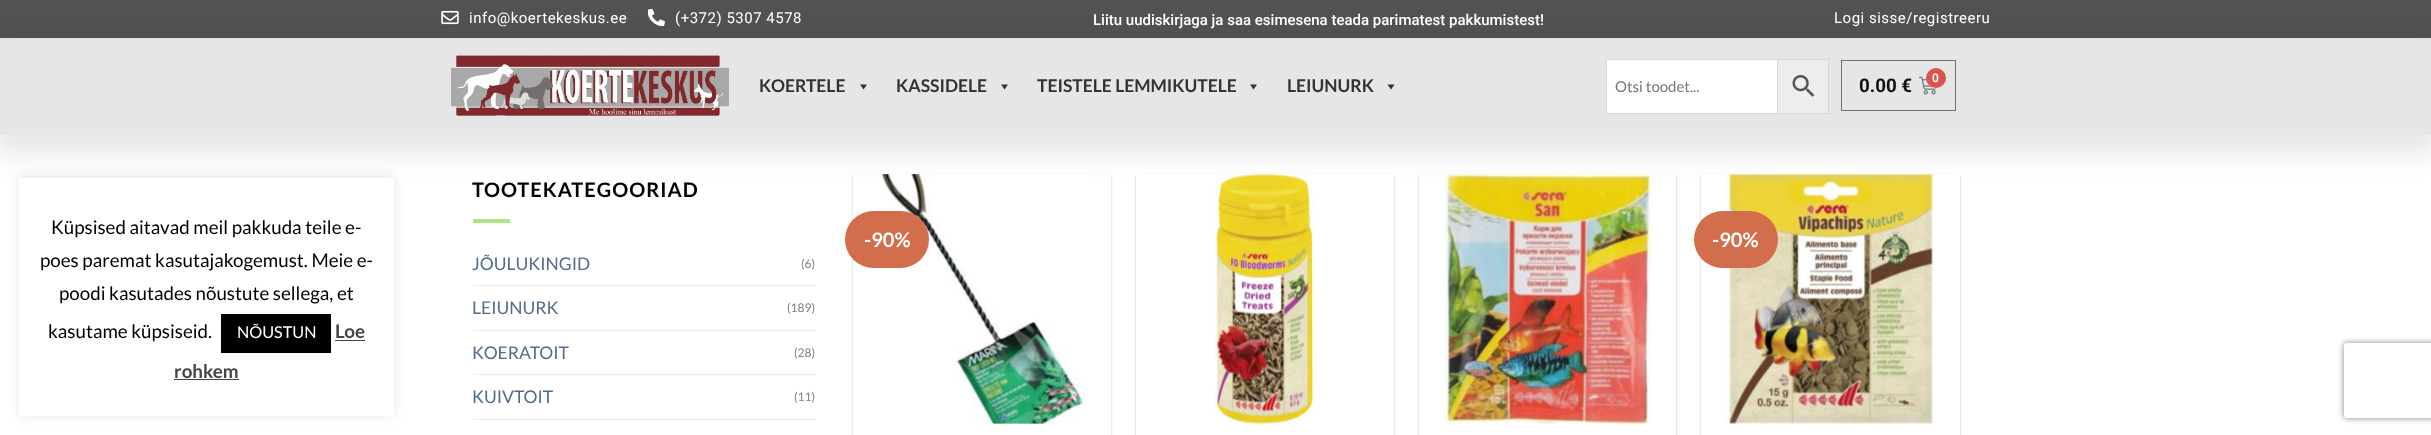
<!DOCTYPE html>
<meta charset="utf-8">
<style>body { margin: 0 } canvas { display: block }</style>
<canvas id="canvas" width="2431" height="435"></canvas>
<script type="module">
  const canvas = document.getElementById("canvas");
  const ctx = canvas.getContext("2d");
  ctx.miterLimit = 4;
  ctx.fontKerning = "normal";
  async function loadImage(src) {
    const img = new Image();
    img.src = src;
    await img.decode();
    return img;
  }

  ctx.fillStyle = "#ffffff";
  ctx.fillRect(0, 0, 2431, 435);
  ctx.fillStyle = "#525252";
  ctx.fillRect(0, 0, 2431, 38);
  ctx.drawImage(await loadImage("img1.png"), 441, 10, 18, 15);
  ctx.letterSpacing = "0.5px";
  ctx.font = "15px Roboto";
  ctx.fillStyle = "#ffffff";
  ctx.fillText("info@koertekeskus.ee", 469, 23);
  ctx.drawImage(await loadImage("img2.png"), 648, 9, 17, 17);
  ctx.fillText("(+372) 5307 4578", 675, 23);
  ctx.letterSpacing = "0px";
  ctx.font = "500 15px Roboto";
  ctx.fillText("Liitu uudiskirjaga ja saa esimesena teada parimatest pakkumistest!", 1093, 25);
  ctx.letterSpacing = "0.5px";
  ctx.font = "15px Roboto";
  ctx.fillText("Logi sisse/registreeru", 1834, 23);
  ctx.fillStyle = "rgba(0, 0, 0, 0.09)";
  ctx.filter = "blur(12.5px)";
  ctx.beginPath();
  ctx.rect(-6, 44, 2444, 111);
  ctx.fill();
  ctx.filter = "none";
  ctx.fillStyle = "#e6e6e6";
  ctx.fillRect(0, 38, 2431, 97);
  ctx.drawImage(await loadImage("img3.png"), 451, 55, 278, 61);
  ctx.letterSpacing = "0px";
  ctx.font = "bold 17.5px Lato";
  ctx.fillStyle = "#333333";
  ctx.fillText("KOERTELE", 759, 92);
  ctx.beginPath();
  ctx.moveTo(867, 84.5);
  ctx.lineTo(863.5, 89.5);
  ctx.lineTo(860, 84.5);
  ctx.closePath();
  ctx.fill();
  ctx.fillText("KASSIDELE", 896, 92);
  ctx.beginPath();
  ctx.moveTo(1008, 84.5);
  ctx.lineTo(1004.5, 89.5);
  ctx.lineTo(1001, 84.5);
  ctx.closePath();
  ctx.fill();
  ctx.fillText("TEISTELE LEMMIKUTELE", 1037, 92);
  ctx.beginPath();
  ctx.moveTo(1257, 84.5);
  ctx.lineTo(1253.5, 89.5);
  ctx.lineTo(1250, 84.5);
  ctx.closePath();
  ctx.fill();
  ctx.fillText("LEIUNURK", 1287, 92);
  ctx.beginPath();
  ctx.moveTo(1394.5, 84.5);
  ctx.lineTo(1391, 89.5);
  ctx.lineTo(1387.5, 84.5);
  ctx.closePath();
  ctx.fill();
  ctx.fillStyle = "#ededed";
  ctx.fillRect(1778, 60, 50, 53);
  ctx.strokeStyle = "#d8d8d8";
  ctx.strokeRect(1776.5, 59.5, 52, 54);
  ctx.fillStyle = "#ffffff";
  ctx.beginPath();
  ctx.rect(1606.5, 59.5, 171, 54);
  ctx.fill();
  ctx.stroke();
  ctx.font = "15px Lato";
  ctx.fillStyle = "#757575";
  ctx.fillText("Otsi toodet...", 1615, 92);
  ctx.drawImage(await loadImage("img4.png"), 1792, 75, 23, 22);
  ctx.strokeStyle = "#69727d";
  ctx.strokeRect(1841.5, 60.5, 114, 50);
  ctx.font = "bold 18.75px Roboto";
  ctx.fillStyle = "#111111";
  ctx.fillText("0.00 €", 1859, 92);
  ctx.drawImage(await loadImage("img5.png"), 1919, 76, 17, 19);
  ctx.fillStyle = "#d9534f";
  ctx.beginPath();
  ctx.arc(1936, 78, 10, 0, Math.PI * 2);
  ctx.fill();
  ctx.font = "600 12px Roboto";
  ctx.fillStyle = "#ffffff";
  ctx.fillText("0", 1932, 82);
  ctx.fillStyle = "rgba(172, 171, 171, 0.3)";
  ctx.filter = "blur(6px)";
  ctx.beginPath();
  ctx.rect(19, 176, 375, 239);
  ctx.fill();
  ctx.filter = "none";
  ctx.fillStyle = "#ffffff";
  ctx.fillRect(19, 178, 375, 238);
  ctx.font = "18.75px Lato";
  ctx.fillStyle = "#000000";
  ctx.fillText("Küpsised aitavad meil pakkuda teile e-", 51, 234);
  ctx.fillText("poes paremat kasutajakogemust. Meie e-", 40, 267);
  ctx.fillText("poodi kasutades nõustute sellega, et", 59, 300);
  ctx.fillText("kasutame küpsiseid.", 48, 338);
  ctx.fillRect(221, 314, 110, 39);
  ctx.font = "16.25px Lato";
  ctx.fillStyle = "#ffffff";
  ctx.fillText("NÕUSTUN", 237, 338);
  ctx.font = "bold 18.75px Lato";
  ctx.fillStyle = "#444444";
  ctx.fillText("Loe", 335, 338);
  ctx.fillRect(335, 340, 30, 1);
  ctx.fillText("rohkem", 174, 378);
  ctx.fillRect(174, 379, 65, 1);
  ctx.letterSpacing = "1px";
  ctx.font = "bold 20px Lato";
  ctx.fillStyle = "#000000";
  ctx.fillText("TOOTEKATEGOORIAD", 472, 197);
  ctx.fillStyle = "#aee586";
  ctx.fillRect(473, 219, 37, 4);
  ctx.letterSpacing = "0px";
  ctx.font = "17.5px Lato";
  ctx.fillStyle = "#546d89";
  ctx.fillText("JÕULUKINGID", 472, 270);
  ctx.font = "12px Lato";
  ctx.fillStyle = "#808080";
  ctx.fillText("(6)", 801, 268);
  ctx.fillStyle = "#ececec";
  ctx.fillRect(473, 285, 343, 1);
  ctx.font = "17.5px Lato";
  ctx.fillStyle = "#546d89";
  ctx.fillText("LEIUNURK", 472, 314);
  ctx.font = "12px Lato";
  ctx.fillStyle = "#808080";
  ctx.fillText("(189)", 787, 312);
  ctx.fillStyle = "#ececec";
  ctx.fillRect(473, 330, 343, 1);
  ctx.font = "17.5px Lato";
  ctx.fillStyle = "#546d89";
  ctx.fillText("KOERATOIT", 472, 359);
  ctx.font = "12px Lato";
  ctx.fillStyle = "#808080";
  ctx.fillText("(28)", 794, 357);
  ctx.fillStyle = "#ececec";
  ctx.fillRect(473, 374, 343, 1);
  ctx.font = "17.5px Lato";
  ctx.fillStyle = "#546d89";
  ctx.fillText("KUIVTOIT", 472, 403);
  ctx.font = "12px Lato";
  ctx.fillStyle = "#808080";
  ctx.fillText("(11)", 794, 401);
  ctx.fillStyle = "#ececec";
  ctx.fillRect(473, 419, 343, 1);
  ctx.save();
  ctx.beginPath();
  ctx.moveTo(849, 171);
  ctx.lineTo(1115, 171);
  ctx.lineTo(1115, 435);
  ctx.lineTo(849, 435);
  ctx.closePath();
  ctx.moveTo(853, 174);
  ctx.lineTo(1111, 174);
  ctx.lineTo(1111, 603);
  ctx.lineTo(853, 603);
  ctx.closePath();
  ctx.clip("evenodd");
  ctx.fillStyle = "rgba(0, 0, 0, 0.24)";
  ctx.filter = "blur(1px)";
  ctx.beginPath();
  ctx.rect(853, 175, 258, 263);
  ctx.fill();
  ctx.filter = "none";
  ctx.restore();
  ctx.drawImage(await loadImage("img6.png"), 880, 174, 206, 250);
  ctx.fillStyle = "#d26e4b";
  ctx.beginPath();
  ctx.roundRect(845, 211, 84, 57, 28.5);
  ctx.fill();
  ctx.font = "bold 20px Lato";
  ctx.fillStyle = "#ffffff";
  ctx.fillText("-90%", 864, 247);
  ctx.fillStyle = "rgba(0, 0, 0, 0.24)";
  ctx.filter = "blur(1px)";
  ctx.beginPath();
  ctx.rect(1136, 175, 258, 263);
  ctx.fill();
  ctx.filter = "none";
  ctx.fillStyle = "#ffffff";
  ctx.fillRect(1136, 174, 258, 261);
  ctx.drawImage(await loadImage("img7.png"), 1214, 174, 102, 250);
  ctx.save();
  ctx.beginPath();
  ctx.moveTo(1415, 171);
  ctx.lineTo(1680, 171);
  ctx.lineTo(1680, 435);
  ctx.lineTo(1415, 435);
  ctx.closePath();
  ctx.moveTo(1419, 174);
  ctx.lineTo(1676, 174);
  ctx.lineTo(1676, 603);
  ctx.lineTo(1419, 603);
  ctx.closePath();
  ctx.clip("evenodd");
  ctx.fillStyle = "rgba(0, 0, 0, 0.24)";
  ctx.filter = "blur(1px)";
  ctx.beginPath();
  ctx.rect(1419, 175, 257, 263);
  ctx.fill();
  ctx.filter = "none";
  ctx.restore();
  ctx.drawImage(await loadImage("img8.png"), 1443, 174, 209, 250);
  ctx.fillStyle = "rgba(0, 0, 0, 0.24)";
  ctx.filter = "blur(1px)";
  ctx.beginPath();
  ctx.rect(1701, 175, 259, 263);
  ctx.fill();
  ctx.filter = "none";
  ctx.fillStyle = "#ffffff";
  ctx.fillRect(1701, 174, 259, 261);
  ctx.drawImage(await loadImage("img9.png"), 1726, 174, 209, 250);
  ctx.fillStyle = "#d26e4b";
  ctx.beginPath();
  ctx.roundRect(1694, 211, 84, 57, 28.5);
  ctx.fill();
  ctx.fillStyle = "#ffffff";
  ctx.fillText("-90%", 1712, 247);
  ctx.save();
  ctx.beginPath();
  ctx.moveTo(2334, 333);
  ctx.lineTo(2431, 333);
  ctx.lineTo(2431, 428);
  ctx.lineTo(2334, 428);
  ctx.closePath();
  ctx.moveTo(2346.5, 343);
  ctx.lineTo(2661.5, 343);
  ctx.bezierCurveTo(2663, 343, 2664, 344, 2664, 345.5);
  ctx.lineTo(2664, 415.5);
  ctx.bezierCurveTo(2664, 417, 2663, 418, 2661.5, 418);
  ctx.lineTo(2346.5, 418);
  ctx.bezierCurveTo(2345, 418, 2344, 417, 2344, 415.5);
  ctx.lineTo(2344, 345.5);
  ctx.bezierCurveTo(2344, 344, 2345, 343, 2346.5, 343);
  ctx.closePath();
  ctx.clip("evenodd");
  ctx.fillStyle = "#808080";
  ctx.filter = "blur(3px)";
  ctx.beginPath();
  ctx.roundRect(2344, 343, 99, 75, 2.5);
  ctx.fill();
  ctx.filter = "none";
  ctx.restore();
</script>
